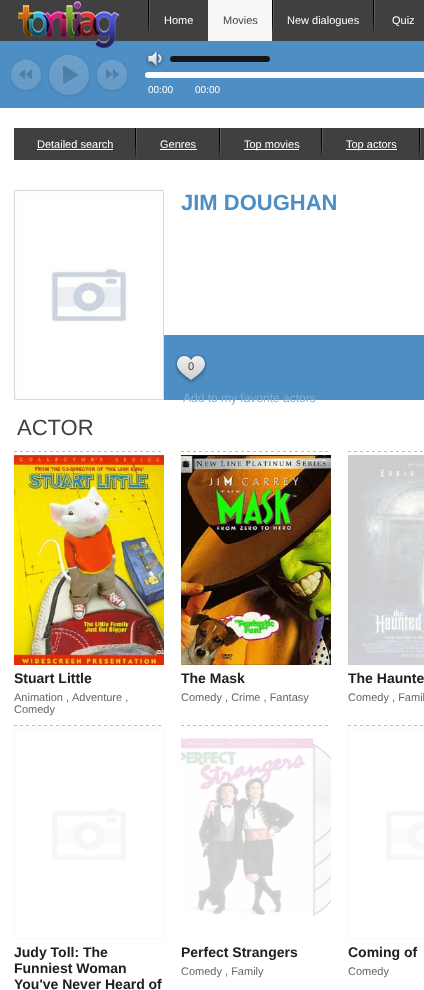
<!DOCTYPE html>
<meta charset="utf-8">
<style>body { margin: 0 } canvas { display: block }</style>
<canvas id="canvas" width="424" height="990"></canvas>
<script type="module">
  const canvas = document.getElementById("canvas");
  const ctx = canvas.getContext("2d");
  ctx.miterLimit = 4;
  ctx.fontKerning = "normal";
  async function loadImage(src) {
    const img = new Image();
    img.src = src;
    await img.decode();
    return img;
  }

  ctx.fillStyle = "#ffffff";
  ctx.fillRect(0, 0, 424, 990);
  ctx.fillStyle = "#404040";
  ctx.fillRect(0, 0, 424, 41);
  ctx.fillStyle = "#4d8ec4";
  ctx.fillRect(0, 41, 424, 67);
  ctx.drawImage(await loadImage("img1.png"), 18, 1, 101, 47);
  ctx.drawImage(await loadImage("img2.png"), 148, 0, 2, 35);
  ctx.font = "11px Liberation Sans";
  ctx.fillStyle = "#ffffff";
  ctx.fillText("Home", 164, 24);
  ctx.fillStyle = "#f7f7f7";
  ctx.fillRect(208, 0, 64, 41);
  ctx.fillStyle = "#404040";
  ctx.fillText("Movies", 223, 24);
  ctx.drawImage(await loadImage("img2.png"), 272, 0, 2, 35);
  ctx.fillStyle = "#ffffff";
  ctx.fillText("New dialogues", 287, 24);
  ctx.drawImage(await loadImage("img2.png"), 373, 0, 2, 35);
  ctx.fillText("Quiz", 392, 24);
  ctx.drawImage(await loadImage("img3.png"), 10, 60, 32, 32);
  ctx.drawImage(await loadImage("img4.png"), 48, 55, 42, 42);
  ctx.drawImage(await loadImage("img5.png"), 96, 60, 32, 32);
  ctx.drawImage(await loadImage("img6.png"), 145, 51, 19, 17);
  ctx.fillStyle = "#161616";
  ctx.beginPath();
  ctx.roundRect(170, 56, 100, 6, 3);
  ctx.fill();
  ctx.fillStyle = "#fbfbfb";
  ctx.beginPath();
  ctx.roundRect(145, 72, 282, 6, 3);
  ctx.fill();
  ctx.font = "10px Liberation Sans";
  ctx.fillStyle = "#ffffff";
  ctx.fillText("00:00", 148, 93);
  ctx.fillText("00:00", 195, 93);
  ctx.fillStyle = "#404040";
  ctx.fillRect(14, 128, 410, 32);
  ctx.drawImage(await loadImage("img7.png"), 135, 128, 2, 30);
  ctx.font = "11px Liberation Sans";
  ctx.fillStyle = "#ffffff";
  ctx.fillText("Detailed search", 37, 148);
  ctx.fillRect(37, 149, 76, 1);
  ctx.drawImage(await loadImage("img7.png"), 219, 128, 2, 30);
  ctx.fillText("Genres", 160, 148);
  ctx.fillRect(160, 149, 37, 1);
  ctx.drawImage(await loadImage("img7.png"), 321, 128, 2, 30);
  ctx.fillRect(244, 149, 55, 1);
  ctx.fillText("Top movies", 244, 148);
  ctx.drawImage(await loadImage("img7.png"), 419, 128, 2, 30);
  ctx.fillRect(346, 149, 51, 1);
  ctx.fillText("Top actors", 346, 148);
  ctx.drawImage(await loadImage("img8.png"), 14, 190, 150, 210);
  ctx.font = "bold 22px Liberation Sans";
  ctx.fillStyle = "#4d8ec4";
  ctx.fillText("JIM DOUGHAN", 181, 210);
  ctx.fillRect(164, 335, 260, 65);
  ctx.drawImage(await loadImage("img9.png"), 175, 354, 32, 30);
  ctx.font = "11px Liberation Sans";
  ctx.fillStyle = "#404040";
  ctx.fillText("0", 188, 370);
  ctx.font = "12px Liberation Sans";
  ctx.fillStyle = "#83b0d6";
  ctx.fillText("Add to my favorite actors", 183, 402);
  ctx.font = "22px Liberation Sans";
  ctx.fillStyle = "#404040";
  ctx.fillText("ACTOR", 17, 435);
  ctx.drawImage(await loadImage("img10.png"), 14, 451, 147, 1);
  ctx.drawImage(await loadImage("img11.png"), 14, 455, 150, 210);
  ctx.font = "bold 14px Liberation Sans";
  ctx.fillStyle = "#202020";
  ctx.fillText("Stuart Little", 14, 683);
  ctx.font = "11px Liberation Sans";
  ctx.fillStyle = "#666666";
  ctx.fillText("Animation ,", 14, 701);
  ctx.fillText("Adventure ,", 72, 701);
  ctx.fillText("Comedy", 14, 713);
  ctx.drawImage(await loadImage("img10.png"), 181, 451, 147, 1);
  ctx.drawImage(await loadImage("img12.png"), 181, 455, 150, 210);
  ctx.font = "bold 14px Liberation Sans";
  ctx.fillStyle = "#202020";
  ctx.fillText("The Mask", 181, 683);
  ctx.font = "11px Liberation Sans";
  ctx.fillStyle = "#666666";
  ctx.fillText("Comedy , Crime , Fantasy", 181, 701);
  ctx.drawImage(await loadImage("img13.png"), 348, 451, 75, 1);
  ctx.drawImage(await loadImage("img14.png"), 348, 455, 76, 210);
  ctx.font = "bold 14px Liberation Sans";
  ctx.fillStyle = "#202020";
  ctx.fillText("The Haunte", 348, 683);
  ctx.font = "11px Liberation Sans";
  ctx.fillStyle = "#666666";
  ctx.fillText("Comedy , Famil", 348, 701);
  ctx.drawImage(await loadImage("img10.png"), 14, 725, 147, 1);
  ctx.drawImage(await loadImage("img15.png"), 14, 729, 150, 210);
  ctx.font = "bold 14px Liberation Sans";
  ctx.fillStyle = "#202020";
  ctx.fillText("Judy Toll: The", 14, 957);
  ctx.fillText("Funniest Woman", 14, 973);
  ctx.fillText("You've Never Heard of", 14, 989);
  ctx.drawImage(await loadImage("img10.png"), 181, 725, 147, 1);
  ctx.drawImage(await loadImage("img16.png"), 181, 738, 150, 178);
  ctx.fillText("Perfect Strangers", 181, 957);
  ctx.font = "11px Liberation Sans";
  ctx.fillStyle = "#666666";
  ctx.fillText("Comedy , Family", 181, 975);
  ctx.drawImage(await loadImage("img13.png"), 348, 725, 75, 1);
  ctx.drawImage(await loadImage("img17.png"), 348, 729, 76, 210);
  ctx.font = "bold 14px Liberation Sans";
  ctx.fillStyle = "#202020";
  ctx.fillText("Coming of", 348, 957);
  ctx.font = "11px Liberation Sans";
  ctx.fillStyle = "#666666";
  ctx.fillText("Comedy", 348, 975);
</script>
